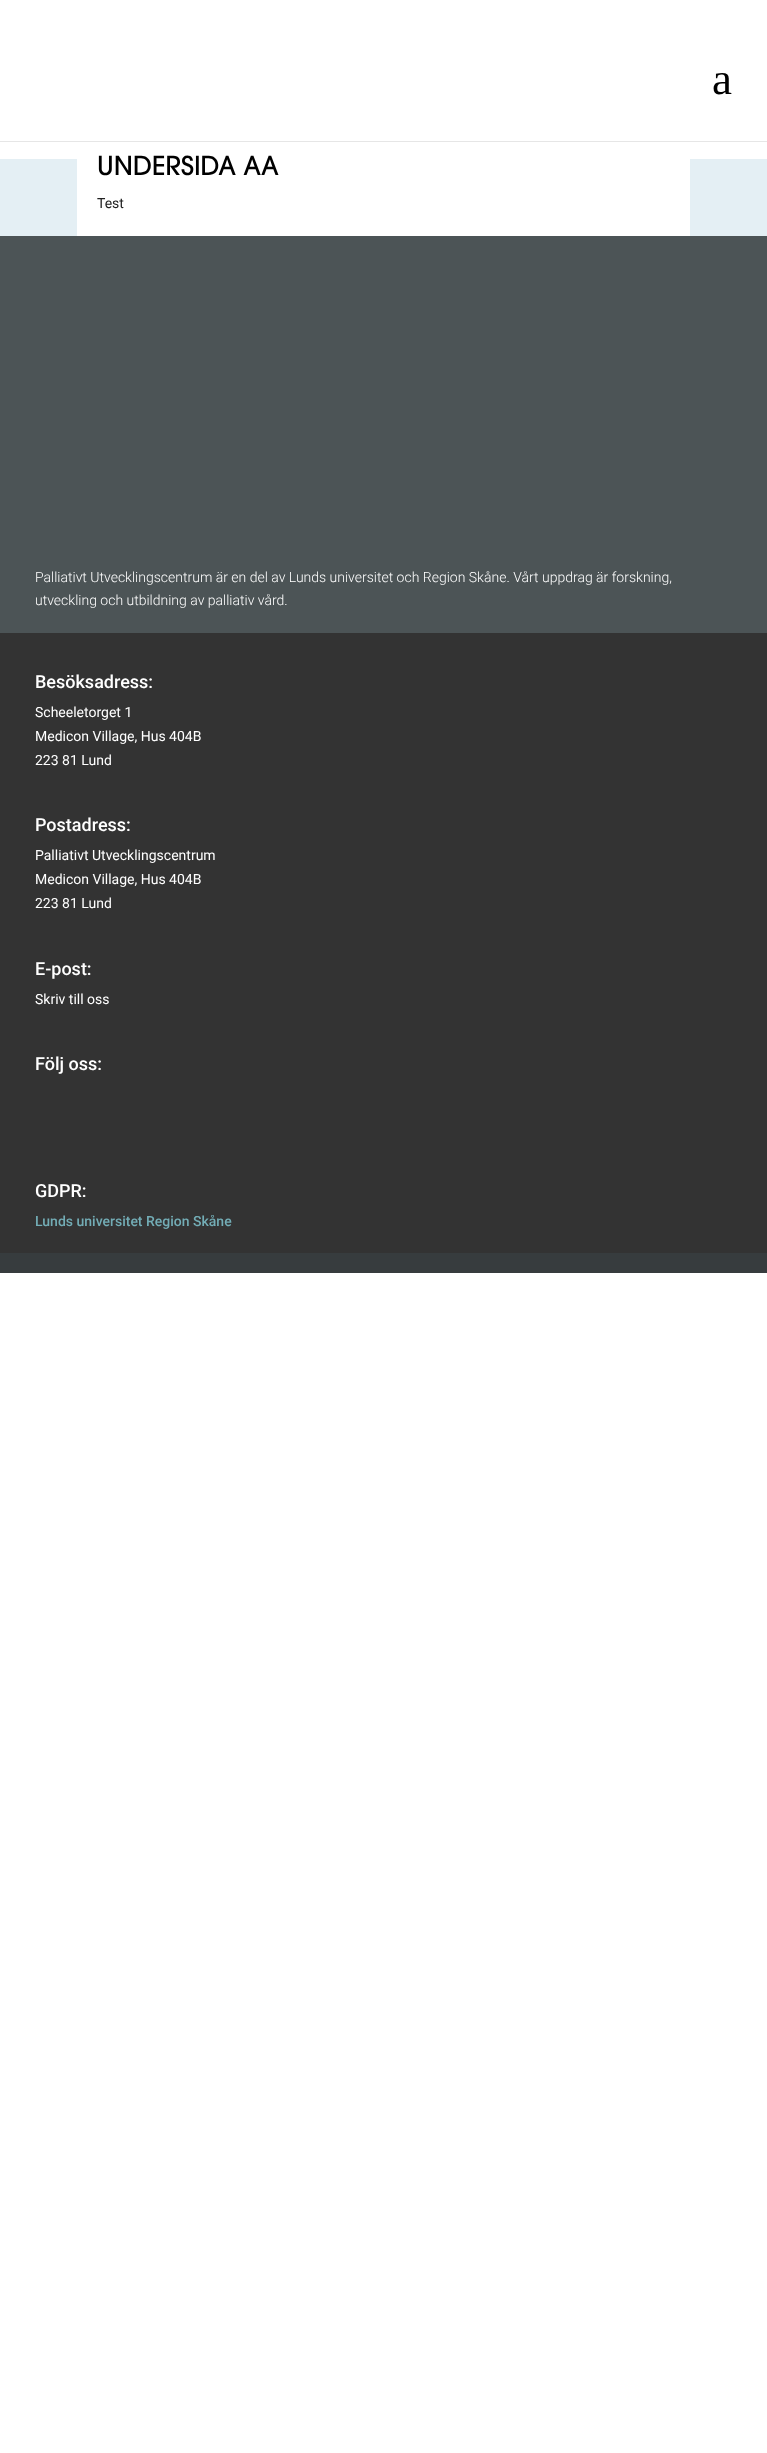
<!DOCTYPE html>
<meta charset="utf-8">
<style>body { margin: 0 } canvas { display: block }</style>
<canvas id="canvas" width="767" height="2453"></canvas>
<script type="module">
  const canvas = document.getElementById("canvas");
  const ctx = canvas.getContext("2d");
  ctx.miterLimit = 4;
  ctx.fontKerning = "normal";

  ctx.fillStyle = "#ffffff";
  ctx.fillRect(0, 0, 767, 2453);
  ctx.fillStyle = "#e6e6e6";
  ctx.fillRect(0, 141, 767, 1);
  ctx.font = "45px Liberation Serif";
  ctx.fillStyle = "#000000";
  ctx.fillText("a", 712, 94);
  ctx.fillStyle = "#e4eff4";
  ctx.fillRect(0, 159, 767, 77);
  ctx.fillStyle = "#ffffff";
  ctx.fillRect(77, 159, 613, 77);
  ctx.font = "500 26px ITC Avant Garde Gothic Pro";
  ctx.fillStyle = "#000000";
  ctx.fillText("UNDERSIDA AA", 97, 175);
  ctx.font = "14px Roboto";
  ctx.fillStyle = "#212121";
  ctx.fillText("Test", 97, 208);
  ctx.fillStyle = "#4c5456";
  ctx.fillRect(0, 236, 767, 397);
  ctx.font = "300 14px Roboto";
  ctx.fillStyle = "#ffffff";
  ctx.fillText("Palliativt Utvecklingscentrum är en del av Lunds universitet och Region Skåne. Vårt uppdrag är forskning,", 35, 582);
  ctx.fillText("utveckling och utbildning av palliativ vård.", 35, 605);
  ctx.fillStyle = "#333333";
  ctx.fillRect(0, 633, 767, 620);
  ctx.font = "500 18px Roboto";
  ctx.fillStyle = "#ffffff";
  ctx.fillText("Besöksadress:", 35, 688);
  ctx.font = "14px Roboto";
  ctx.fillText("Scheeletorget 1", 35, 717);
  ctx.fillText("Medicon Village, Hus 404B", 35, 741);
  ctx.fillText("223 81 Lund", 35, 765);
  ctx.font = "500 18px Roboto";
  ctx.fillText("Postadress:", 35, 831);
  ctx.font = "14px Roboto";
  ctx.fillText("Palliativt Utvecklingscentrum", 35, 860);
  ctx.fillText("Medicon Village, Hus 404B", 35, 884);
  ctx.fillText("223 81 Lund", 35, 908);
  ctx.font = "500 18px Roboto";
  ctx.fillText("E-post:", 35, 975);
  ctx.font = "14px Roboto";
  ctx.fillText("Skriv till oss", 35, 1004);
  ctx.font = "500 18px Roboto";
  ctx.fillText("Följ oss:", 35, 1070);
  ctx.fillText("GDPR:", 35, 1197);
  ctx.font = "500 14px Roboto";
  ctx.fillStyle = "#73adb6";
  ctx.fillText("Lunds universitet Region Skåne", 35, 1226);
  ctx.fillStyle = "#373c3e";
  ctx.fillRect(0, 1253, 767, 20);
</script>
